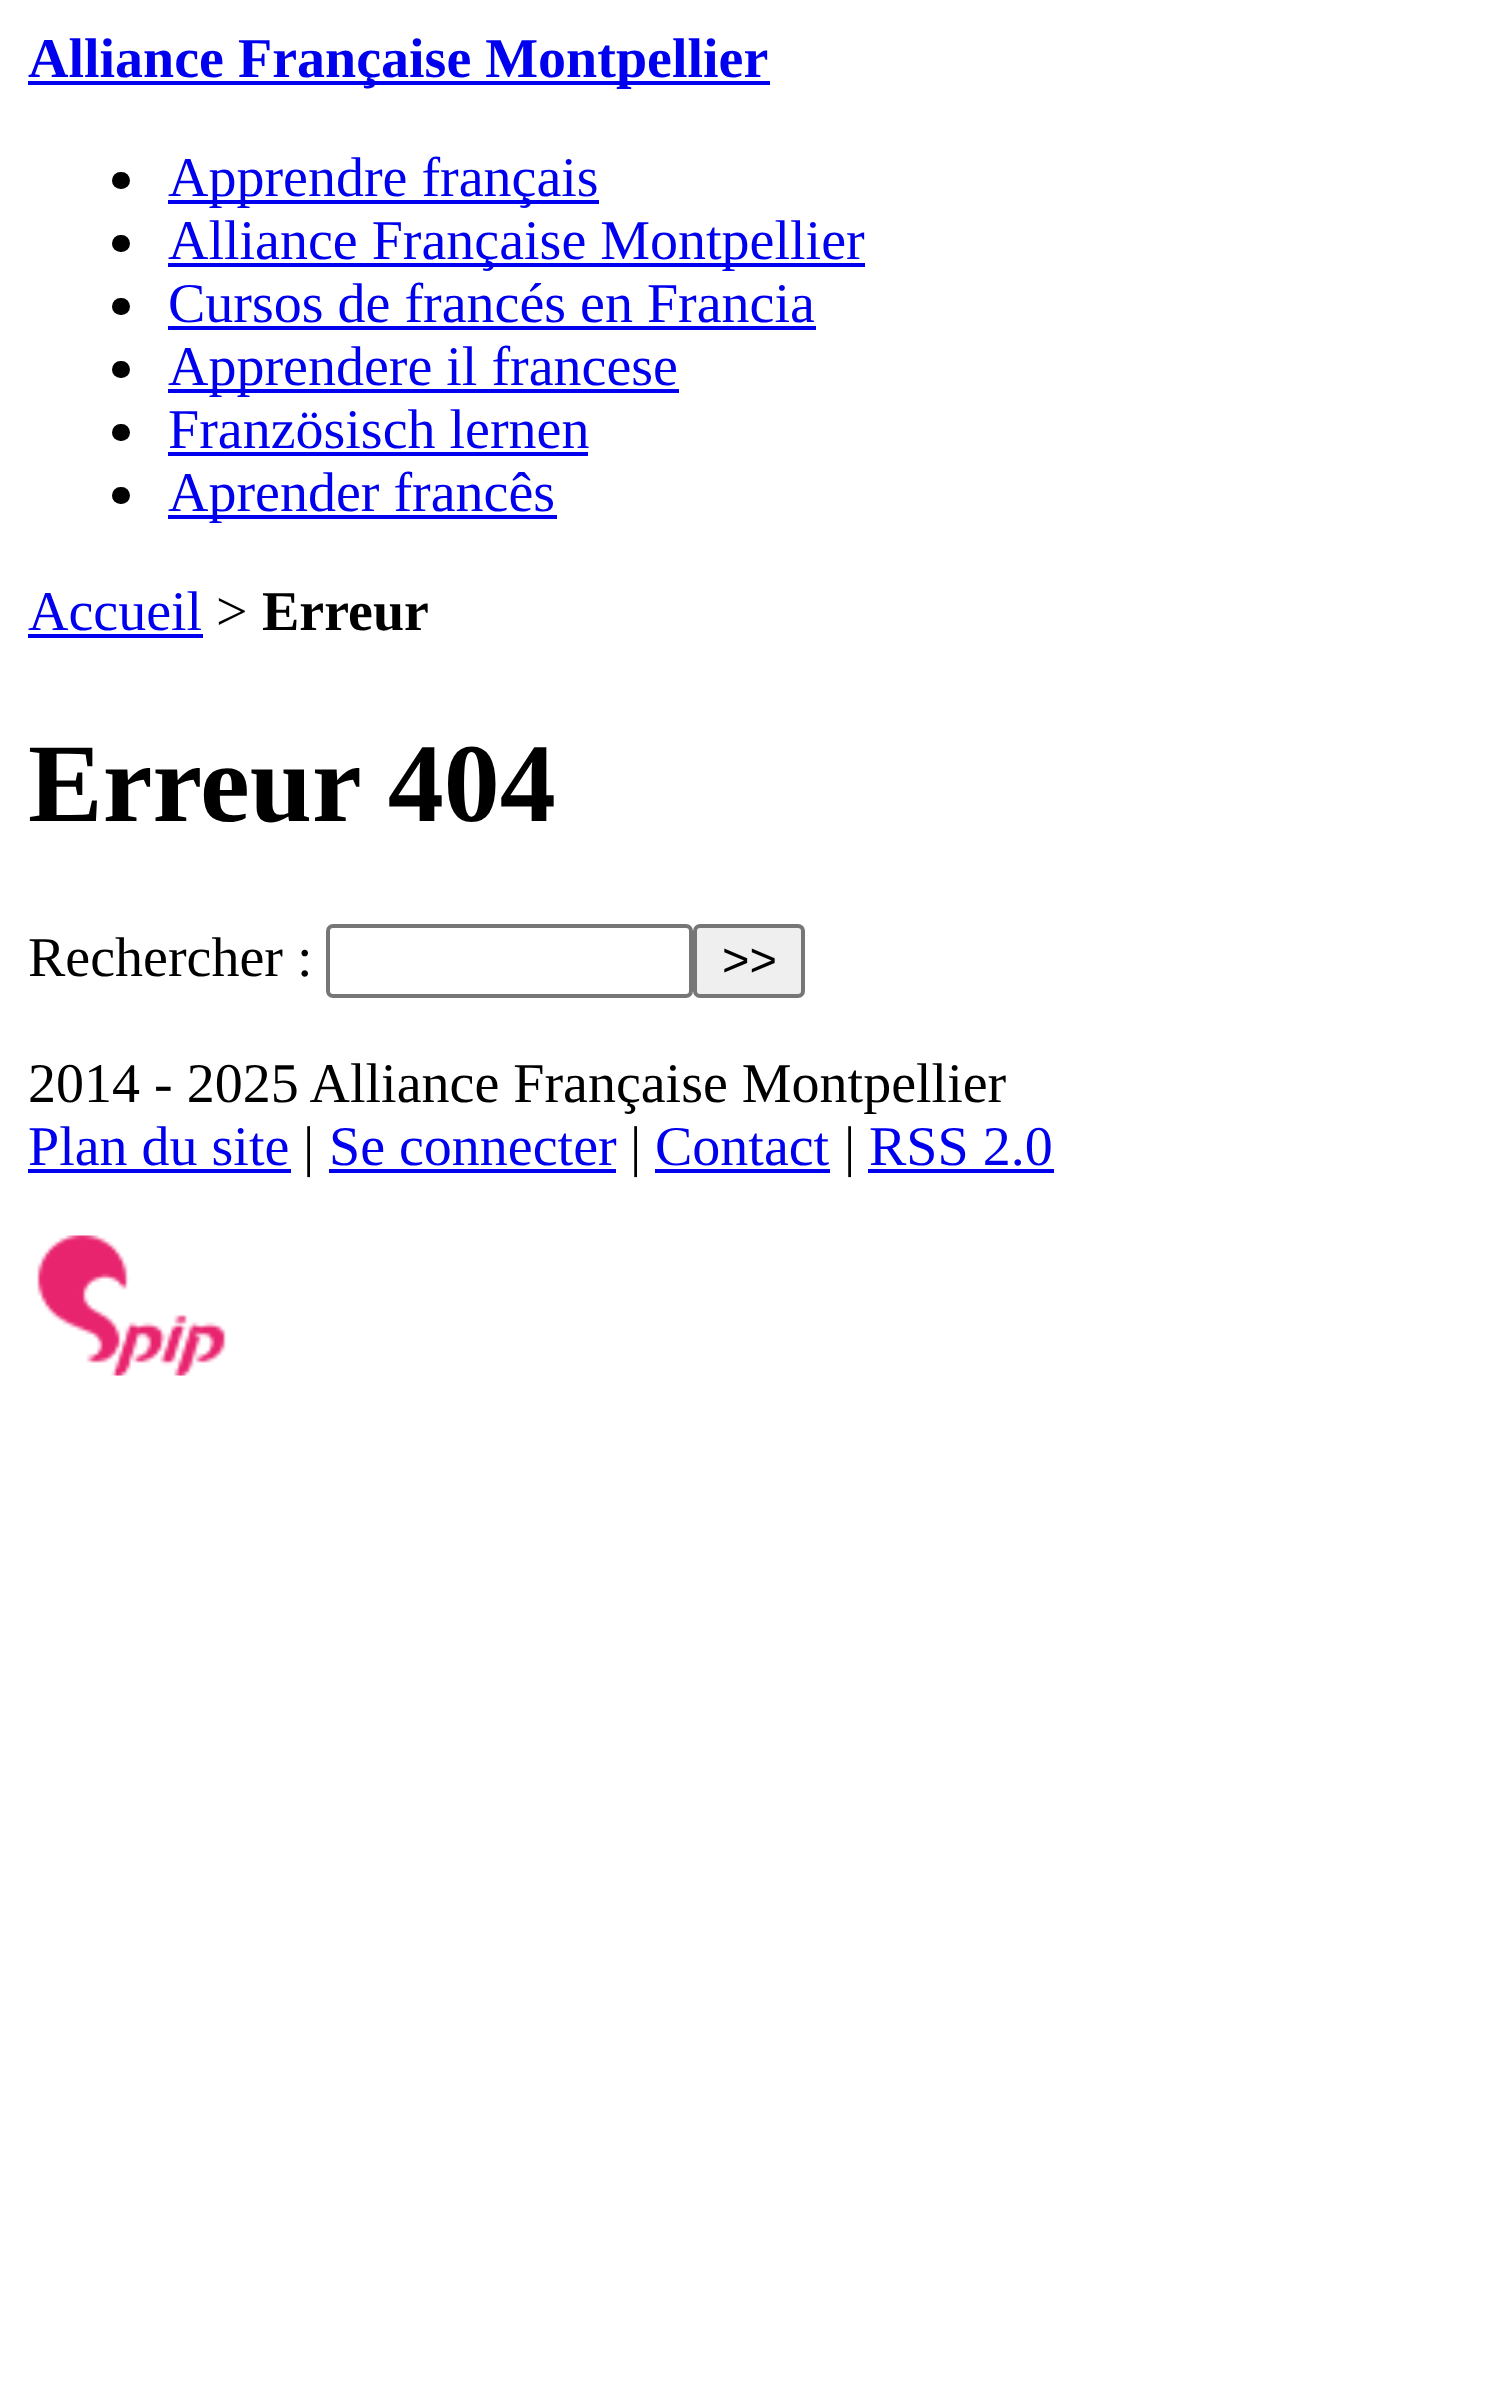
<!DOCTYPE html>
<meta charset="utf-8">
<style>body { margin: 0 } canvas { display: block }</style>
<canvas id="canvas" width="1495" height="2381"></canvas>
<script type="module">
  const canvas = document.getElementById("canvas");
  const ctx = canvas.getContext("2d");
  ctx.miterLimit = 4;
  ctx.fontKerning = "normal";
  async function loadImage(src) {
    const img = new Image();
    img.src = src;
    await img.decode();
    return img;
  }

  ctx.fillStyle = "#ffffff";
  ctx.fillRect(0, 0, 1495, 2381);
  ctx.fillStyle = "#0000ee";
  ctx.fillRect(28, 81, 742, 4);
  ctx.font = "bold 56px Liberation Serif";
  ctx.fillText("Alliance Française Montpellier", 28, 77);
  ctx.fillStyle = "#000000";
  ctx.beginPath();
  ctx.roundRect(112, 172, 18, 17, 8.5);
  ctx.fill();
  ctx.fillStyle = "#0000ee";
  ctx.fillRect(168, 200, 431, 4);
  ctx.font = "56px Liberation Serif";
  ctx.fillText("Apprendre français", 168, 196);
  ctx.fillStyle = "#000000";
  ctx.beginPath();
  ctx.roundRect(112, 235, 18, 17, 8.5);
  ctx.fill();
  ctx.fillStyle = "#0000ee";
  ctx.fillRect(168, 263, 697, 4);
  ctx.fillText("Alliance Française Montpellier", 168, 259);
  ctx.fillStyle = "#000000";
  ctx.beginPath();
  ctx.roundRect(112, 298, 18, 17, 8.5);
  ctx.fill();
  ctx.fillStyle = "#0000ee";
  ctx.fillText("Cursos de francés en Francia", 168, 322);
  ctx.fillRect(168, 326, 648, 4);
  ctx.fillStyle = "#000000";
  ctx.beginPath();
  ctx.roundRect(112, 361, 18, 17, 8.5);
  ctx.fill();
  ctx.fillStyle = "#0000ee";
  ctx.fillRect(168, 389, 511, 4);
  ctx.fillText("Apprendere il francese", 168, 385);
  ctx.fillStyle = "#000000";
  ctx.beginPath();
  ctx.roundRect(112, 424, 18, 17, 8.5);
  ctx.fill();
  ctx.fillStyle = "#0000ee";
  ctx.fillText("Französisch lernen", 168, 448);
  ctx.fillRect(168, 452, 420, 4);
  ctx.fillStyle = "#000000";
  ctx.beginPath();
  ctx.roundRect(112, 487, 18, 17, 8.5);
  ctx.fill();
  ctx.fillStyle = "#0000ee";
  ctx.fillRect(168, 515, 389, 4);
  ctx.fillText("Aprender francês", 168, 511);
  ctx.fillText("Accueil", 28, 630);
  ctx.fillRect(28, 634, 175, 4);
  ctx.fillStyle = "#000000";
  ctx.fillText(">", 216, 630);
  ctx.font = "bold 56px Liberation Serif";
  ctx.fillText("Erreur", 262, 630);
  ctx.font = "bold 112px Liberation Serif";
  ctx.fillText("Erreur 404", 28, 821);
  ctx.font = "56px Liberation Serif";
  ctx.fillText("Rechercher :", 28, 976);
  ctx.beginPath();
  ctx.roundRect(328, 926, 363, 70, 5);
  ctx.strokeStyle = "#767676";
  ctx.lineWidth = 4;
  ctx.stroke();
  ctx.fillStyle = "#efefef";
  ctx.beginPath();
  ctx.roundRect(695, 926, 108, 70, 5);
  ctx.fill();
  ctx.stroke();
  ctx.font = "47px Liberation Sans";
  ctx.fillStyle = "#000000";
  ctx.fillText(">>", 722, 976);
  ctx.font = "56px Liberation Serif";
  ctx.fillText("2014 - 2025 Alliance Française Montpellier", 28, 1102);
  ctx.fillStyle = "#0000ee";
  ctx.fillText("Plan du site", 28, 1165);
  ctx.fillRect(28, 1169, 263, 4);
  ctx.fillStyle = "#000000";
  ctx.fillText("|", 303, 1165);
  ctx.fillStyle = "#0000ee";
  ctx.fillText("Se connecter", 329, 1165);
  ctx.fillRect(329, 1169, 287, 4);
  ctx.fillStyle = "#000000";
  ctx.fillText("|", 630, 1165);
  ctx.fillStyle = "#0000ee";
  ctx.fillText("Contact", 655, 1165);
  ctx.fillRect(655, 1169, 175, 4);
  ctx.fillStyle = "#000000";
  ctx.fillText("|", 844, 1165);
  ctx.fillStyle = "#0000ee";
  ctx.fillText("RSS 2.0", 869, 1165);
  ctx.fillRect(868, 1169, 186, 4);
  ctx.drawImage(await loadImage("img1.png"), 37, 1235, 189, 141);
</script>
